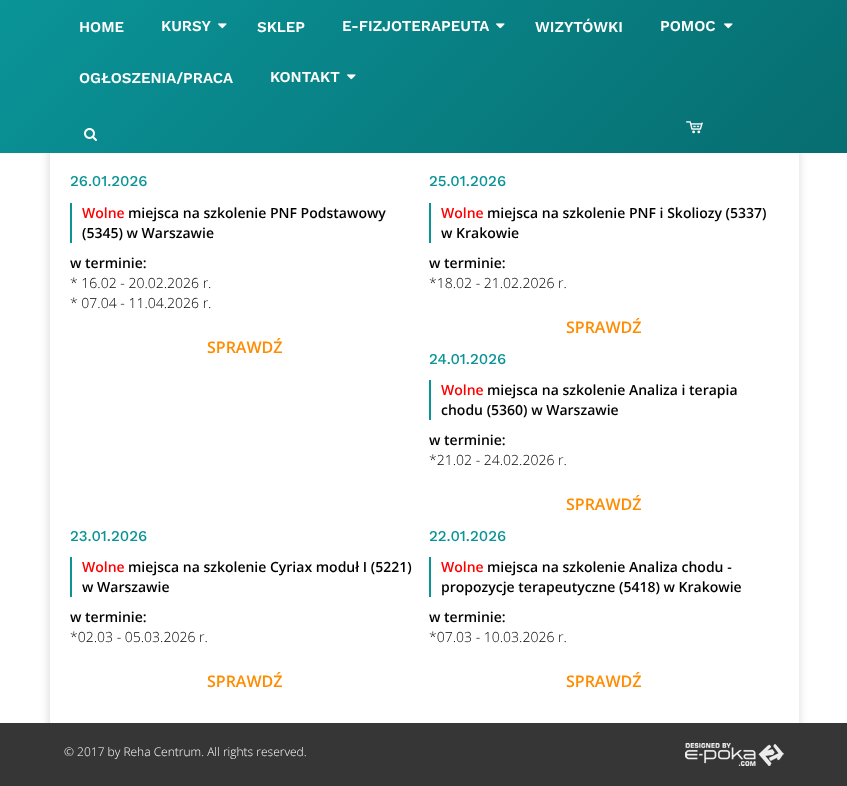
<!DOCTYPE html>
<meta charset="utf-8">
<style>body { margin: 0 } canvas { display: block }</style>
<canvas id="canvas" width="847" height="786"></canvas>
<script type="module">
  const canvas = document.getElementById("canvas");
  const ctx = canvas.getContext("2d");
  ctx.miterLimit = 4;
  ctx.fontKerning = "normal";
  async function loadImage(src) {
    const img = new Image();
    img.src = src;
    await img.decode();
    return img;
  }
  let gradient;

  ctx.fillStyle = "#ffffff";
  ctx.fillRect(0, 0, 847, 786);
  ctx.save();
  ctx.beginPath();
  ctx.moveTo(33, 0);
  ctx.lineTo(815, 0);
  ctx.lineTo(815, 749);
  ctx.lineTo(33, 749);
  ctx.closePath();
  ctx.moveTo(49, -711);
  ctx.lineTo(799, -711);
  ctx.lineTo(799, 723);
  ctx.lineTo(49, 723);
  ctx.closePath();
  ctx.clip("evenodd");
  ctx.fillStyle = "rgba(0, 0, 0, 0.14)";
  ctx.filter = "blur(5px)";
  ctx.beginPath();
  ctx.rect(49, -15, 750, 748);
  ctx.fill();
  ctx.filter = "none";
  ctx.restore();
  gradient = ctx.createLinearGradient(173, -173, 674, 327);
  gradient.addColorStop(0, "#0a9498");
  gradient.addColorStop(1, "#076d70");
  ctx.fillStyle = gradient;
  ctx.fillRect(0, 0, 847, 153);
  ctx.font = "600 15px Work Sans";
  ctx.fillStyle = "#ffffff";
  ctx.fillText("HOME", 79, 32);
  ctx.fillText("KURSY", 161, 31);
  ctx.drawImage(await loadImage("img1.png"), 218, 23, 9, 6);
  ctx.fillText("SKLEP", 257, 32);
  ctx.fillText("E-FIZJOTERAPEUTA", 342, 31);
  ctx.drawImage(await loadImage("img2.png"), 496, 23, 9, 6);
  ctx.fillText("WIZYTÓWKI", 535, 32);
  ctx.fillText("POMOC", 660, 31);
  ctx.drawImage(await loadImage("img3.png"), 724, 23, 9, 6);
  ctx.fillText("OGŁOSZENIA/PRACA", 79, 83);
  ctx.fillText("KONTAKT", 270, 82);
  ctx.drawImage(await loadImage("img4.png"), 347, 74, 9, 6);
  ctx.drawImage(await loadImage("img5.png"), 84, 128, 13, 13);
  ctx.drawImage(await loadImage("img6.png"), 686, 121, 17, 13);
  ctx.fillStyle = "#eaeaea";
  ctx.fillRect(49, 153, 1, 570);
  ctx.font = "500 15px Work Sans";
  ctx.fillStyle = "#0a9498";
  ctx.fillText("26.01.2026", 70, 186);
  ctx.fillRect(70, 203, 2, 40);
  ctx.font = "600 14px Open Sans";
  ctx.fillStyle = "#ff0000";
  ctx.fillText("Wolne", 82, 218);
  ctx.fillStyle = "#000000";
  ctx.fillText("miejsca na szkolenie PNF Podstawowy", 128, 218);
  ctx.fillText("(5345) w Warszawie", 82, 238);
  ctx.fillText("w terminie:", 70, 268);
  ctx.font = "300 14px Open Sans";
  ctx.fillText("* 16.02 - 20.02.2026 r.", 70, 288);
  ctx.fillText("* 07.04 - 11.04.2026 r.", 70, 308);
  ctx.font = "600 16px Open Sans";
  ctx.fillStyle = "#ff8c00";
  ctx.fillText("SPRAWDŹ", 207, 353);
  ctx.font = "500 15px Work Sans";
  ctx.fillStyle = "#0a9498";
  ctx.fillText("25.01.2026", 429, 186);
  ctx.fillRect(429, 203, 2, 40);
  ctx.font = "600 14px Open Sans";
  ctx.fillStyle = "#ff0000";
  ctx.fillText("Wolne", 441, 218);
  ctx.fillStyle = "#000000";
  ctx.fillText("miejsca na szkolenie PNF i Skoliozy (5337)", 487, 218);
  ctx.fillText("w Krakowie", 441, 238);
  ctx.fillText("w terminie:", 429, 268);
  ctx.font = "300 14px Open Sans";
  ctx.fillText("*18.02 - 21.02.2026 r.", 429, 288);
  ctx.font = "600 16px Open Sans";
  ctx.fillStyle = "#ff8c00";
  ctx.fillText("SPRAWDŹ", 566, 333);
  ctx.font = "500 15px Work Sans";
  ctx.fillStyle = "#0a9498";
  ctx.fillText("24.01.2026", 429, 364);
  ctx.fillRect(429, 380, 2, 40);
  ctx.font = "600 14px Open Sans";
  ctx.fillStyle = "#ff0000";
  ctx.fillText("Wolne", 441, 395);
  ctx.fillStyle = "#000000";
  ctx.fillText("miejsca na szkolenie Analiza i terapia", 487, 395);
  ctx.fillText("chodu (5360) w Warszawie", 441, 415);
  ctx.fillText("w terminie:", 429, 445);
  ctx.font = "300 14px Open Sans";
  ctx.fillText("*21.02 - 24.02.2026 r.", 429, 465);
  ctx.font = "600 16px Open Sans";
  ctx.fillStyle = "#ff8c00";
  ctx.fillText("SPRAWDŹ", 566, 510);
  ctx.font = "500 15px Work Sans";
  ctx.fillStyle = "#0a9498";
  ctx.fillText("23.01.2026", 70, 541);
  ctx.fillRect(70, 557, 2, 40);
  ctx.font = "600 14px Open Sans";
  ctx.fillStyle = "#ff0000";
  ctx.fillText("Wolne", 82, 572);
  ctx.fillStyle = "#000000";
  ctx.fillText("miejsca na szkolenie Cyriax moduł I (5221)", 128, 572);
  ctx.fillText("w Warszawie", 82, 592);
  ctx.fillText("w terminie:", 70, 622);
  ctx.font = "300 14px Open Sans";
  ctx.fillText("*02.03 - 05.03.2026 r.", 70, 642);
  ctx.font = "600 16px Open Sans";
  ctx.fillStyle = "#ff8c00";
  ctx.fillText("SPRAWDŹ", 207, 687);
  ctx.font = "500 15px Work Sans";
  ctx.fillStyle = "#0a9498";
  ctx.fillText("22.01.2026", 429, 541);
  ctx.fillRect(429, 557, 2, 40);
  ctx.font = "600 14px Open Sans";
  ctx.fillStyle = "#ff0000";
  ctx.fillText("Wolne", 441, 572);
  ctx.fillStyle = "#000000";
  ctx.fillText("miejsca na szkolenie Analiza chodu -", 487, 572);
  ctx.fillText("propozycje terapeutyczne (5418) w Krakowie", 441, 592);
  ctx.fillText("w terminie:", 429, 622);
  ctx.font = "300 14px Open Sans";
  ctx.fillText("*07.03 - 10.03.2026 r.", 429, 642);
  ctx.font = "600 16px Open Sans";
  ctx.fillStyle = "#ff8c00";
  ctx.fillText("SPRAWDŹ", 566, 687);
  ctx.fillStyle = "#363636";
  ctx.fillRect(0, 723, 847, 63);
  ctx.font = "300 12px Open Sans";
  ctx.fillStyle = "#ffffff";
  ctx.fillText("© 2017 by Reha Centrum. All rights reserved.", 64, 756);
  ctx.drawImage(await loadImage("img7.png"), 685, 743, 99, 23);
</script>
